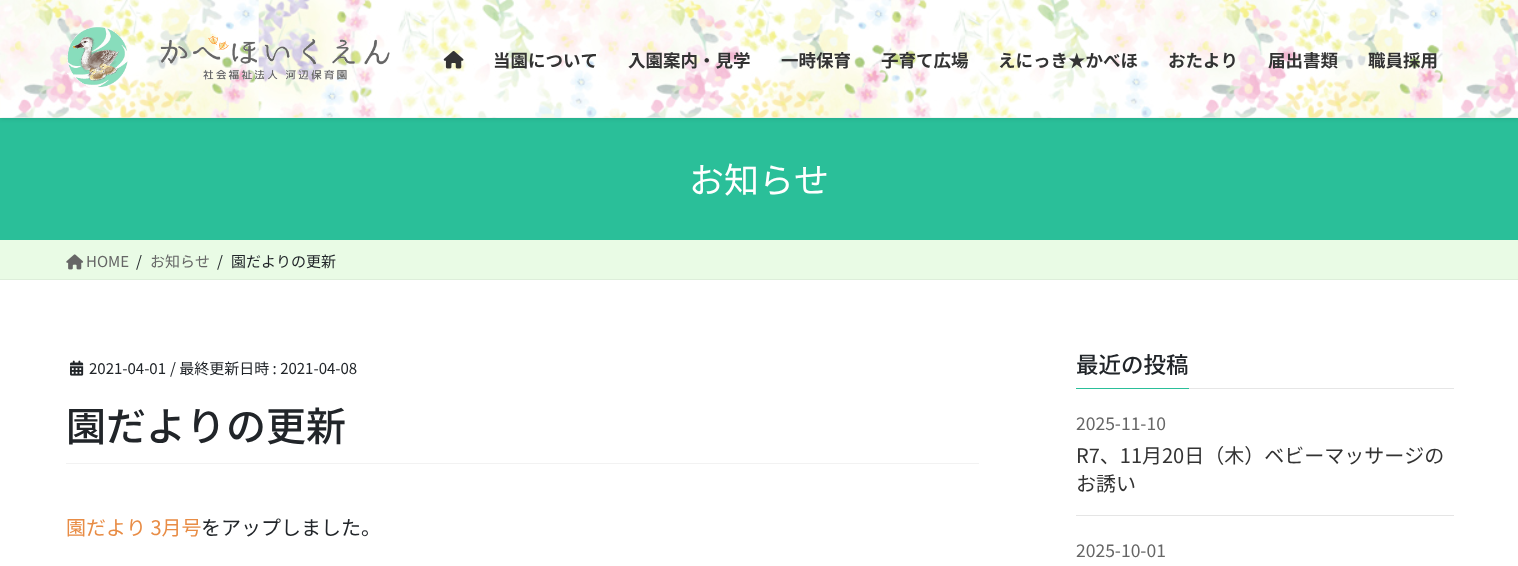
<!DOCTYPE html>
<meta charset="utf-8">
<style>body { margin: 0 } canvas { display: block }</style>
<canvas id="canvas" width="1518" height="566"></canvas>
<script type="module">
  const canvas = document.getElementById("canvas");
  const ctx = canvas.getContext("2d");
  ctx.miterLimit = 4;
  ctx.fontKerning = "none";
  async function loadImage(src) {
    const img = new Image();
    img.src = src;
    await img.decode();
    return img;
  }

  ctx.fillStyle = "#ffffff";
  ctx.fillRect(0, 0, 1518, 566);
  ctx.fillStyle = "#2abf99";
  ctx.fillRect(0, 118, 1518, 122);
  ctx.fillStyle = "rgba(0, 0, 0, 0.1)";
  ctx.filter = "blur(2px)";
  ctx.beginPath();
  ctx.rect(0, 1, 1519, 118);
  ctx.fill();
  ctx.filter = "none";
  ctx.drawImage(await loadImage("img1.png"), 0, 0, 1518, 118);
  ctx.drawImage(await loadImage("img2.png"), 66, 27, 324, 61);
  ctx.drawImage(await loadImage("img3.png"), 443, 51, 21, 18);
  ctx.font = "bold 17.5px Noto Sans JP";
  ctx.fillStyle = "#333333";
  ctx.fillText("当園について", 493, 67);
  ctx.fillText("入園案内・見学", 628, 67);
  ctx.fillText("一時保育", 781, 67);
  ctx.fillText("子育て広場", 881, 67);
  ctx.fillText("えにっき★かべほ", 998, 67);
  ctx.fillText("おたより", 1168, 67);
  ctx.fillText("届出書類", 1268, 67);
  ctx.fillText("職員採用", 1368, 67);
  ctx.font = "35px Noto Sans JP";
  ctx.fillStyle = "#ffffff";
  ctx.fillText("お知らせ", 689, 193);
  ctx.fillStyle = "#e9fbe5";
  ctx.fillRect(0, 240, 1518, 39);
  ctx.fillStyle = "#ddeeda";
  ctx.fillRect(0, 279, 1518, 1);
  ctx.drawImage(await loadImage("img4.png"), 66, 254, 18, 16);
  ctx.font = "15px Noto Sans JP";
  ctx.fillStyle = "#666666";
  ctx.fillText("HOME", 86, 267);
  ctx.fillStyle = "#212529";
  ctx.fillText("/", 136, 267);
  ctx.fillStyle = "#666666";
  ctx.fillText("お知らせ", 150, 267);
  ctx.fillStyle = "#212529";
  ctx.fillText("/", 217, 267);
  ctx.fillText("園だよりの更新", 231, 267);
  ctx.fillStyle = "#f2f2f2";
  ctx.fillRect(66, 463, 913, 1);
  ctx.drawImage(await loadImage("img5.png"), 70, 360, 14, 16);
  ctx.fillStyle = "#212529";
  ctx.fillText("2021-04-01", 89, 374);
  ctx.fillText("/ 最終更新日時 : 2021-04-08", 170, 374);
  ctx.font = "500 40px Noto Sans JP";
  ctx.fillText("園だよりの更新", 66, 441);
  ctx.font = "20px Noto Sans JP";
  ctx.fillStyle = "#e88c45";
  ctx.fillText("園だより 3月号", 66, 535);
  ctx.fillStyle = "#212529";
  ctx.fillText("をアップしました。", 201, 535);
  ctx.fillStyle = "#e6e6e6";
  ctx.fillRect(1189, 388, 265, 1);
  ctx.font = "500 22.5px Noto Sans JP";
  ctx.fillStyle = "#212529";
  ctx.fillText("最近の投稿", 1076, 373);
  ctx.fillStyle = "#2abf99";
  ctx.fillRect(1076, 388, 113, 1);
  ctx.fillStyle = "#e5e5e5";
  ctx.fillRect(1076, 515, 378, 1);
  ctx.font = "17.5px Noto Sans JP";
  ctx.fillStyle = "#666666";
  ctx.fillText("2025-11-10", 1076, 430);
  ctx.font = "20px Noto Sans JP";
  ctx.fillStyle = "#333333";
  ctx.fillText("R7、11月20日（木）ベビーマッサージの", 1076, 463);
  ctx.fillText("お誘い", 1076, 491);
  ctx.font = "17.5px Noto Sans JP";
  ctx.fillStyle = "#666666";
  ctx.fillText("2025-10-01", 1076, 557);
</script>
